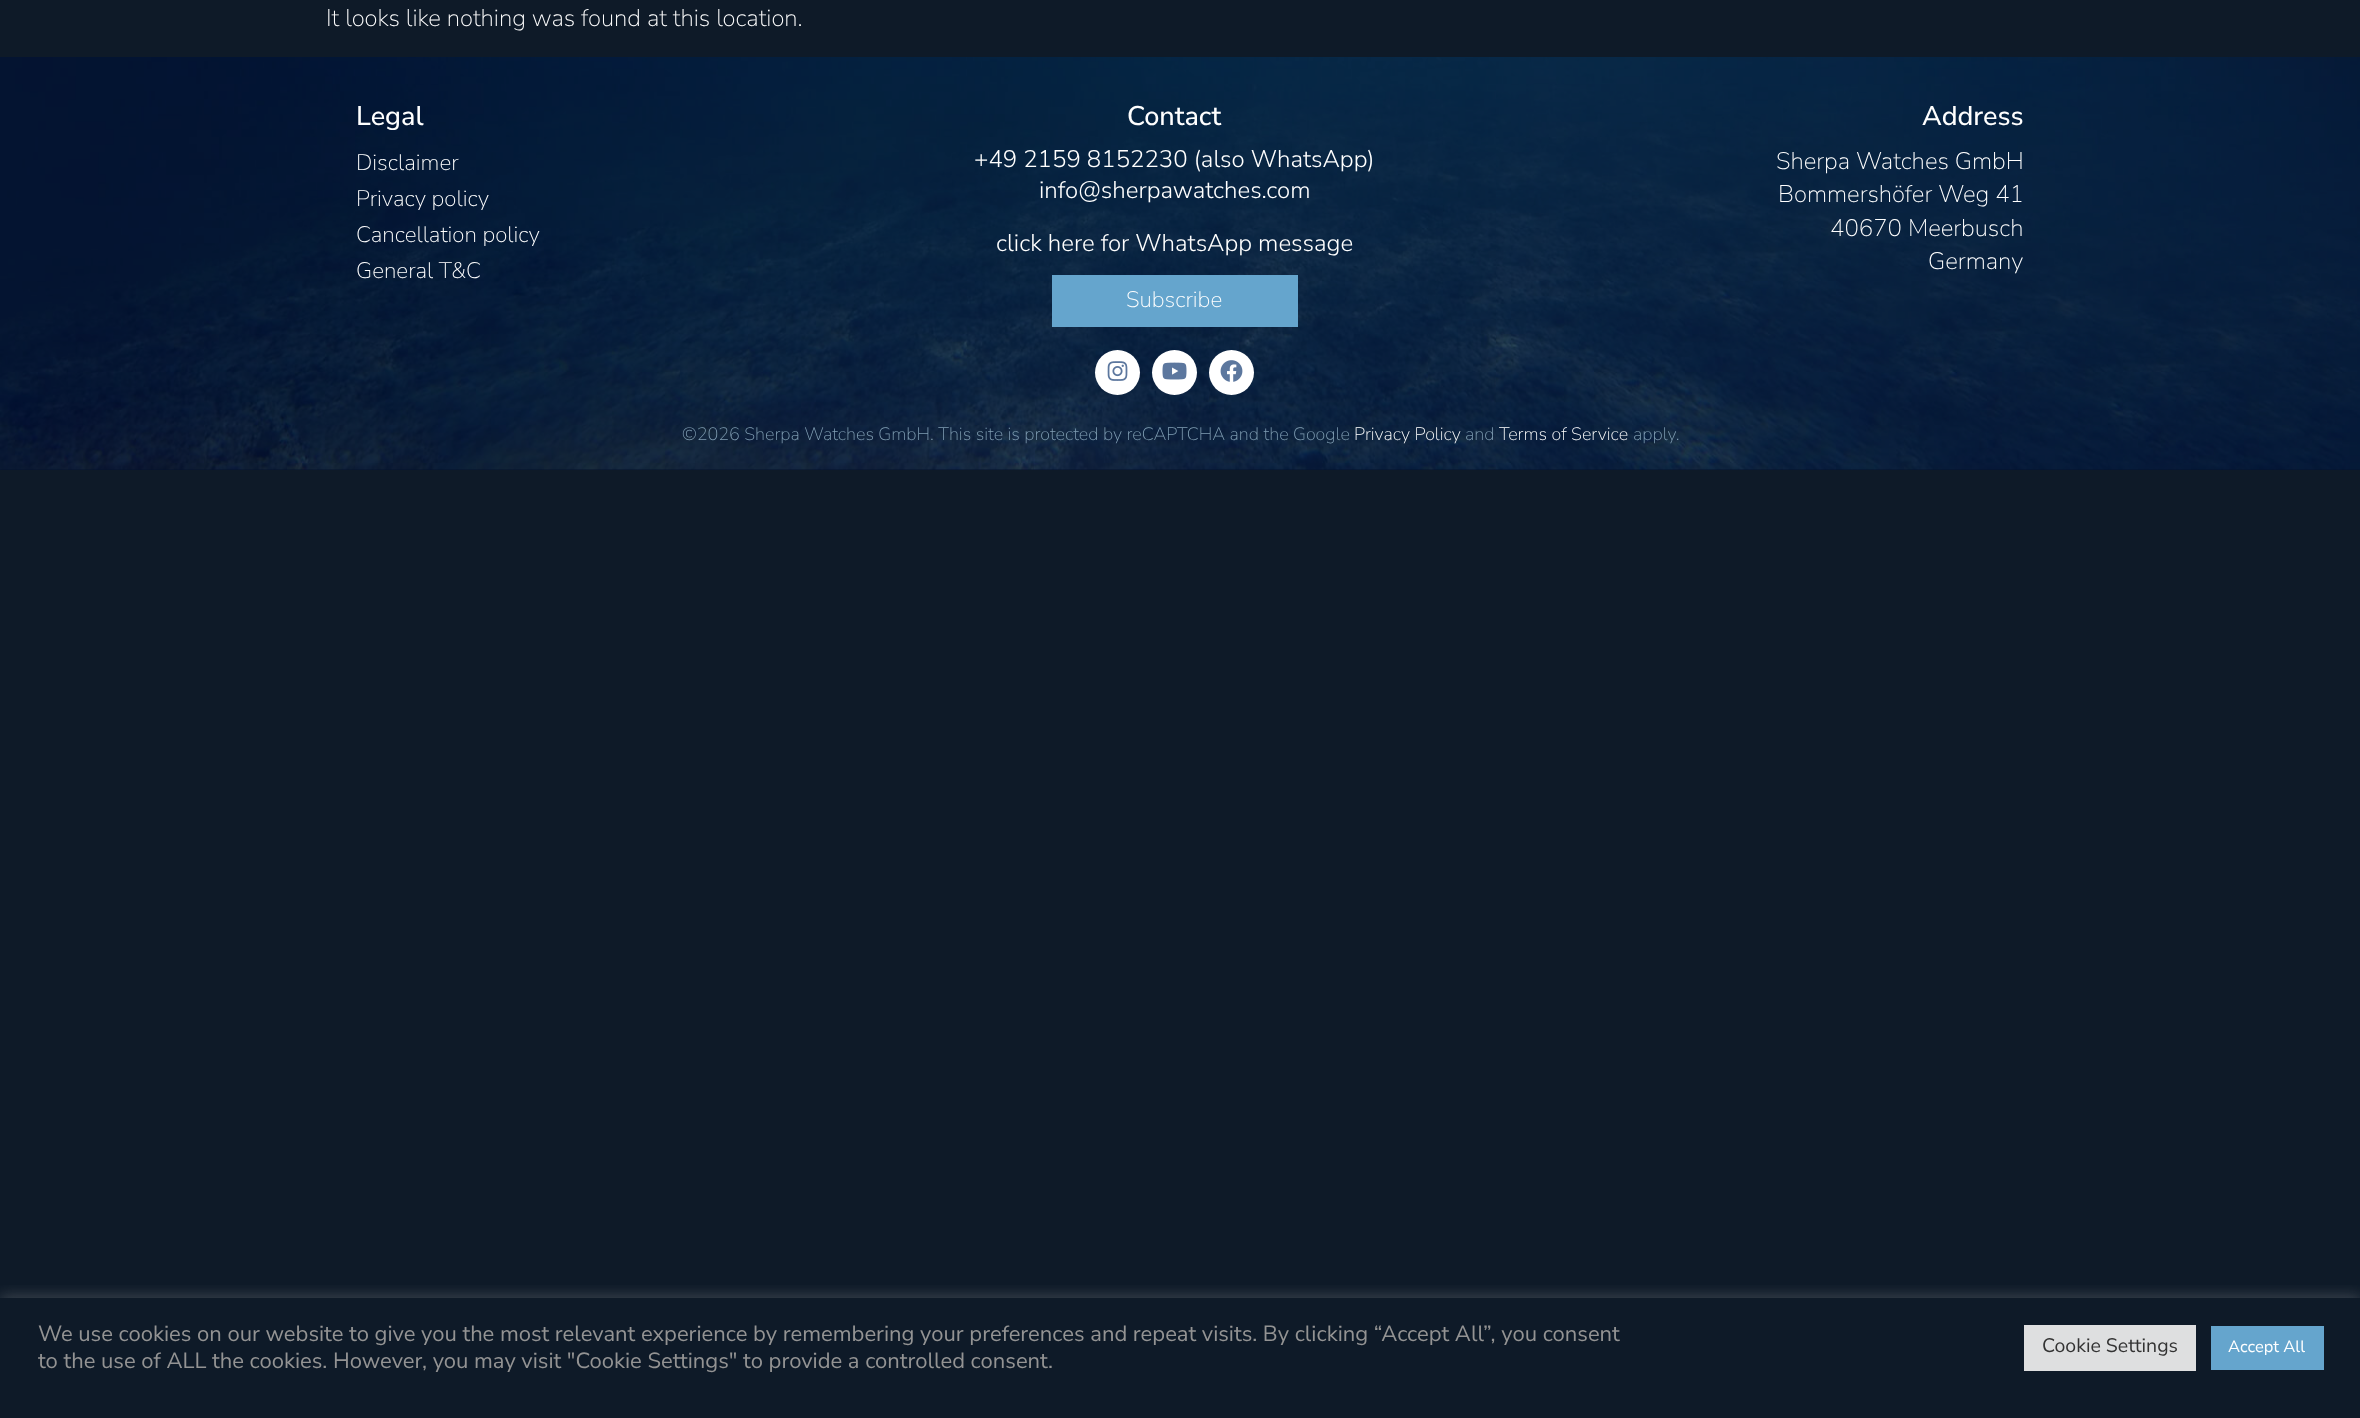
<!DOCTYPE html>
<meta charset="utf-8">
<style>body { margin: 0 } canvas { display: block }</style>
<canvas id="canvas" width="2360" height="1418"></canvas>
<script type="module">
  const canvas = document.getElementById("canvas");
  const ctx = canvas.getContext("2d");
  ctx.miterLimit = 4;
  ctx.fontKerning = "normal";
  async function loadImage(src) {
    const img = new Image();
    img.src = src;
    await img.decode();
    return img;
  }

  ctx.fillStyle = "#0e1a28";
  ctx.fillRect(0, 0, 2360, 1418);
  ctx.font = "200 24px Nunito Sans";
  ctx.fillStyle = "#ffffff";
  ctx.fillText("It looks like nothing was found at this location.", 326, 26);
  ctx.fillStyle = "#05122d";
  ctx.fillRect(0, 469, 2360, 1);
  ctx.drawImage(await loadImage("img1.png"), 0, 57, 2360, 413);
  ctx.font = "500 27px Nunito Sans";
  ctx.fillStyle = "#ffffff";
  ctx.fillText("Legal", 356, 125);
  ctx.font = "200 22.5px Nunito Sans";
  ctx.fillText("Disclaimer", 356, 170);
  ctx.fillText("Privacy policy", 356, 206);
  ctx.fillText("Cancellation policy", 356, 242);
  ctx.fillText("General T&C", 356, 278);
  ctx.font = "500 27px Nunito Sans";
  ctx.fillText("Contact", 1127, 125);
  ctx.font = "300 24px Nunito Sans";
  ctx.fillText("+49 2159 8152230 (also WhatsApp)", 974, 167);
  ctx.fillText("info@sherpawatches.com", 1039, 198);
  ctx.fillText("click here for WhatsApp message", 996, 251);
  ctx.fillStyle = "#65a5cd";
  ctx.fillRect(1052, 275, 246, 52);
  ctx.font = "200 22.5px Nunito Sans";
  ctx.fillStyle = "#ffffff";
  ctx.fillText("Subscribe", 1126, 307);
  ctx.beginPath();
  ctx.arc(1117.5, 372.5, 22.5, 0, Math.PI * 2);
  ctx.fill();
  ctx.drawImage(await loadImage("img2.png"), 1107, 361, 21, 20);
  ctx.beginPath();
  ctx.arc(1174.5, 372.5, 22.5, 0, Math.PI * 2);
  ctx.fill();
  ctx.drawImage(await loadImage("img3.png"), 1162, 362, 25, 18);
  ctx.beginPath();
  ctx.arc(1231.5, 372.5, 22.5, 0, Math.PI * 2);
  ctx.fill();
  ctx.drawImage(await loadImage("img4.png"), 1220, 360, 23, 22);
  ctx.font = "500 27px Nunito Sans";
  ctx.fillText("Address", 1922, 125);
  ctx.font = "200 24px Nunito Sans";
  ctx.fillText("Sherpa Watches GmbH", 1776, 169);
  ctx.fillText("Bommershöfer Weg 41", 1778, 202);
  ctx.fillText("40670 Meerbusch", 1830, 236);
  ctx.fillText("Germany", 1928, 269);
  ctx.font = "200 18px Nunito Sans";
  ctx.fillStyle = "#819fb4";
  ctx.fillText("©2026 Sherpa Watches GmbH. This site is protected by reCAPTCHA and the Google", 682, 440);
  ctx.fillStyle = "#ffffff";
  ctx.fillText("Privacy Policy", 1354, 440);
  ctx.fillStyle = "#819fb4";
  ctx.fillText("and", 1465, 440);
  ctx.fillStyle = "#ffffff";
  ctx.fillText("Terms of Service", 1499, 440);
  ctx.fillStyle = "#819fb4";
  ctx.fillText("apply.", 1633, 440);
  ctx.save();
  ctx.beginPath();
  ctx.rect(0, 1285, 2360, 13);
  ctx.clip();
  ctx.fillStyle = "rgba(172, 171, 171, 0.3)";
  ctx.filter = "blur(7.5px)";
  ctx.beginPath();
  ctx.rect(0, 1296, 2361, 122);
  ctx.fill();
  ctx.filter = "none";
  ctx.restore();
  ctx.font = "22px Nunito Sans";
  ctx.fillStyle = "#939393";
  ctx.fillText("We use cookies on our website to give you the most relevant experience by remembering your preferences and repeat visits. By clicking “Accept All”, you consent", 38, 1341);
  ctx.fillText("to the use of ALL the cookies. However, you may visit \"Cookie Settings\" to provide a controlled consent.", 38, 1368);
  ctx.fillStyle = "#dedfe0";
  ctx.fillRect(2024, 1325, 172, 46);
  ctx.font = "19.5px Nunito Sans";
  ctx.fillStyle = "#333333";
  ctx.fillText("Cookie Settings", 2042, 1352);
  ctx.fillStyle = "#65a5cd";
  ctx.fillRect(2211, 1326, 113, 44);
  ctx.font = "16.5px Nunito Sans";
  ctx.fillStyle = "#ffffff";
  ctx.fillText("Accept All", 2228, 1352);
</script>
